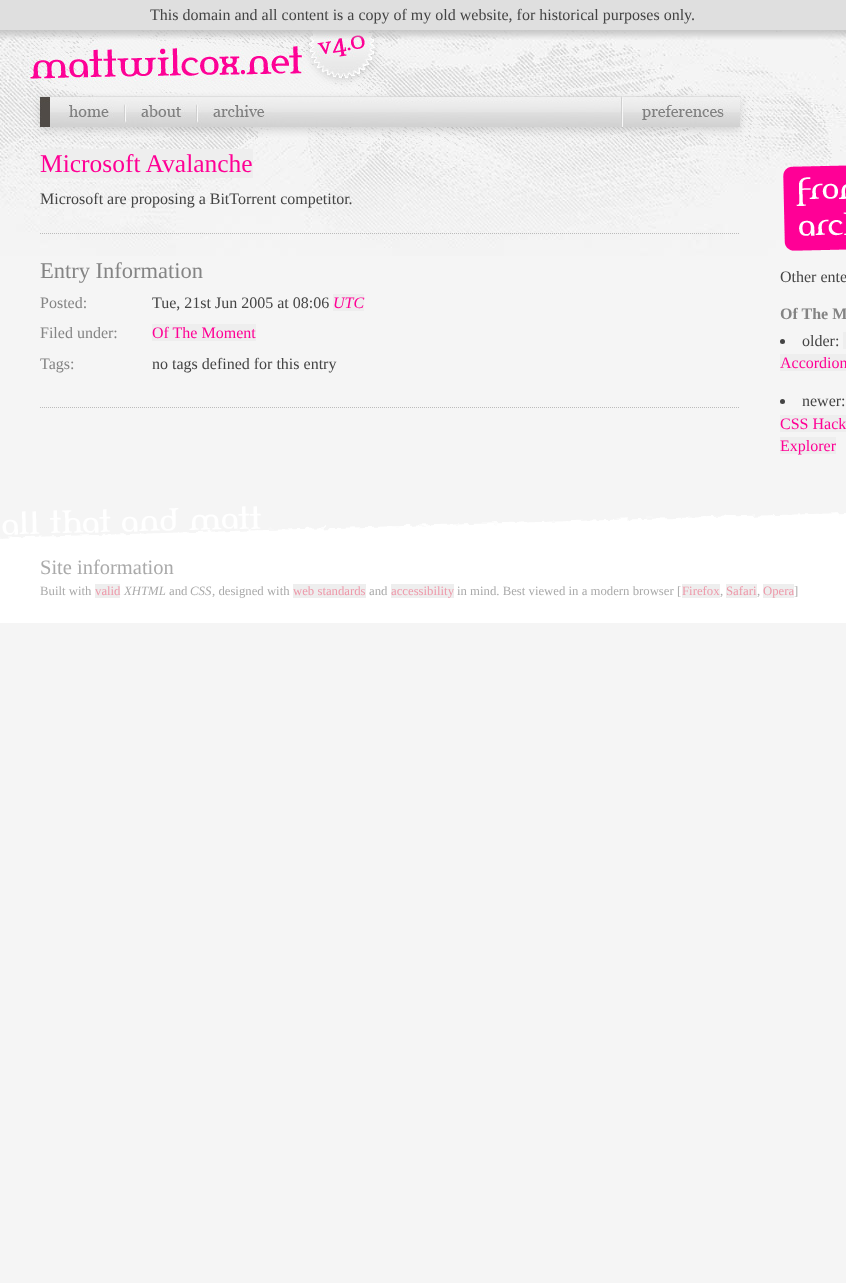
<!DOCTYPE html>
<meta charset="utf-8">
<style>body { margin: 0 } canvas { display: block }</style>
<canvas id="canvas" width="846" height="1283"></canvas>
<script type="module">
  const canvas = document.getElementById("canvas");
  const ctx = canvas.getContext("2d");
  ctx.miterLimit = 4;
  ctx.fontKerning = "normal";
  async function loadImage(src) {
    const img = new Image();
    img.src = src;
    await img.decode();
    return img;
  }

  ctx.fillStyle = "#f5f5f5";
  ctx.fillRect(0, 0, 846, 1283);
  ctx.drawImage(await loadImage("img1.png"), 0, 30, 846, 226);
  ctx.drawImage(await loadImage("img2.png"), 0, 506, 846, 117);
  ctx.drawImage(await loadImage("img4.png"), 28, 30, 355, 57);
  ctx.drawImage(await loadImage("img3.png"), 0, 0, 846, 40);
  ctx.font = "16px Liberation Serif";
  ctx.fillStyle = "#444444";
  ctx.fillText("This domain and all content is a copy of my old website, for historical purposes only.", 150, 20);
  ctx.drawImage(await loadImage("img5.png"), 26, 87, 730, 55);
  ctx.beginPath();
  ctx.moveTo(40, 407.5);
  ctx.lineTo(740, 407.5);
  ctx.strokeStyle = "#bbbbbb";
  ctx.setLineDash([1, 1]);
  ctx.stroke();
  ctx.fillStyle = "#eeeeee";
  ctx.fillRect(40, 149, 213, 29);
  ctx.font = "25.5px Liberation Serif";
  ctx.fillStyle = "#ff0095";
  ctx.fillText("Microsoft Avalanche", 40, 172);
  ctx.font = "16px Liberation Serif";
  ctx.fillStyle = "#444444";
  ctx.fillText("Microsoft are proposing a BitTorrent competitor.", 40, 204);
  ctx.beginPath();
  ctx.moveTo(40, 233.5);
  ctx.lineTo(740, 233.5);
  ctx.stroke();
  ctx.font = "22.5px Liberation Serif";
  ctx.fillStyle = "#848484";
  ctx.fillText("Entry Information", 40, 278);
  ctx.font = "16px Liberation Serif";
  ctx.fillText("Posted:", 40, 308);
  ctx.fillStyle = "#444444";
  ctx.fillText("Tue, 21st Jun 2005 at 08:06", 152, 308);
  ctx.fillStyle = "#eeeeee";
  ctx.fillRect(333, 294, 31, 17);
  ctx.font = "italic 16px Liberation Serif";
  ctx.fillStyle = "#ff0095";
  ctx.fillText("UTC", 333, 308);
  ctx.font = "16px Liberation Serif";
  ctx.fillStyle = "#848484";
  ctx.fillText("Filed under:", 40, 338);
  ctx.fillStyle = "#eeeeee";
  ctx.fillRect(152, 324, 104, 17);
  ctx.fillStyle = "#ff0095";
  ctx.fillText("Of The Moment", 152, 338);
  ctx.fillStyle = "#848484";
  ctx.fillText("Tags:", 40, 369);
  ctx.fillStyle = "#444444";
  ctx.fillText("no tags defined for this entry", 152, 369);
  ctx.drawImage(await loadImage("img6.png"), 783, 165, 63, 86);
  ctx.fillText("Other ente", 780, 282);
  ctx.font = "bold 16px Liberation Serif";
  ctx.fillStyle = "#848484";
  ctx.fillText("Of The M", 780, 319);
  ctx.fillStyle = "#444444";
  ctx.beginPath();
  ctx.arc(782.5, 341.5, 2.5, 0, Math.PI * 2);
  ctx.fill();
  ctx.font = "16px Liberation Serif";
  ctx.fillText("older:", 802, 346);
  ctx.fillStyle = "#eeeeee";
  ctx.fillRect(780, 354, 66, 17);
  ctx.fillStyle = "#ff0095";
  ctx.fillText("Accordion", 780, 368);
  ctx.fillStyle = "#eeeeee";
  ctx.fillRect(843, 332, 3, 17);
  ctx.fillStyle = "#444444";
  ctx.beginPath();
  ctx.arc(782.5, 401.5, 2.5, 0, Math.PI * 2);
  ctx.fill();
  ctx.fillText("newer:", 802, 406);
  ctx.fillStyle = "#eeeeee";
  ctx.fillRect(780, 415, 66, 17);
  ctx.fillStyle = "#ff0095";
  ctx.fillText("CSS Hack", 780, 429);
  ctx.fillStyle = "#eeeeee";
  ctx.fillRect(780, 437, 56, 17);
  ctx.fillStyle = "#ff0095";
  ctx.fillText("Explorer", 780, 451);
  ctx.font = "20.5px Liberation Serif";
  ctx.fillStyle = "#aaaaaa";
  ctx.fillText("Site information", 40, 574);
  ctx.font = "12.75px Liberation Serif";
  ctx.fillText("Built with", 40, 595);
  ctx.fillStyle = "#eeeeee";
  ctx.fillRect(95, 584, 25, 14);
  ctx.fillStyle = "#ee99aa";
  ctx.fillText("valid", 95, 595);
  ctx.font = "italic 12.75px Liberation Serif";
  ctx.fillStyle = "#aaaaaa";
  ctx.fillText("XHTML", 124, 595);
  ctx.font = "12.75px Liberation Serif";
  ctx.fillText("and", 169, 595);
  ctx.font = "italic 12.75px Liberation Serif";
  ctx.fillText("CSS", 190, 595);
  ctx.font = "12.75px Liberation Serif";
  ctx.fillText(", designed with", 212, 595);
  ctx.fillStyle = "#eeeeee";
  ctx.fillRect(293, 584, 73, 14);
  ctx.fillStyle = "#ee99aa";
  ctx.fillText("web standards", 293, 595);
  ctx.fillStyle = "#aaaaaa";
  ctx.fillText("and", 369, 595);
  ctx.fillStyle = "#eeeeee";
  ctx.fillRect(391, 584, 63, 14);
  ctx.fillStyle = "#ee99aa";
  ctx.fillText("accessibility", 391, 595);
  ctx.fillStyle = "#aaaaaa";
  ctx.fillText("in mind. Best viewed in a modern browser [", 457, 595);
  ctx.fillStyle = "#eeeeee";
  ctx.fillRect(682, 584, 38, 14);
  ctx.fillStyle = "#ee99aa";
  ctx.fillText("Firefox", 682, 595);
  ctx.fillStyle = "#aaaaaa";
  ctx.fillText(",", 720, 595);
  ctx.fillStyle = "#eeeeee";
  ctx.fillRect(726, 584, 31, 14);
  ctx.fillStyle = "#ee99aa";
  ctx.fillText("Safari", 726, 595);
  ctx.fillStyle = "#aaaaaa";
  ctx.fillText(",", 757, 595);
  ctx.fillStyle = "#eeeeee";
  ctx.fillRect(763, 584, 31, 14);
  ctx.fillStyle = "#ee99aa";
  ctx.fillText("Opera", 763, 595);
  ctx.fillStyle = "#aaaaaa";
  ctx.fillText("]", 794, 595);
</script>
